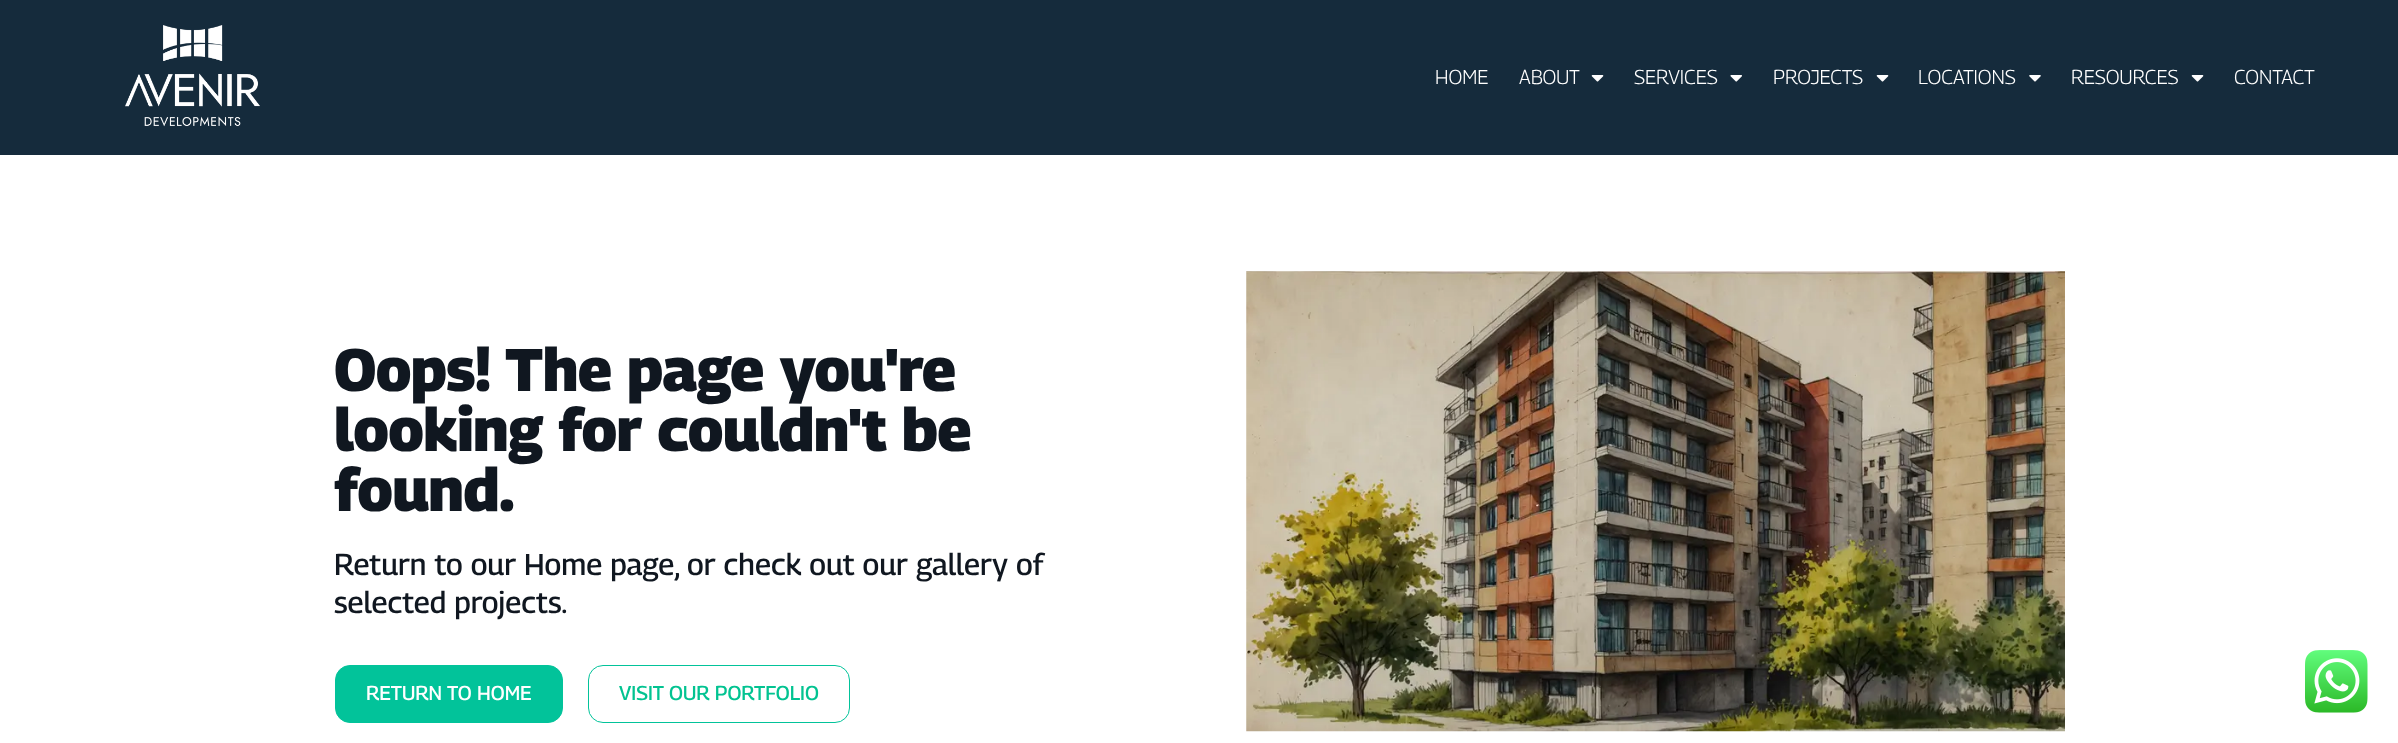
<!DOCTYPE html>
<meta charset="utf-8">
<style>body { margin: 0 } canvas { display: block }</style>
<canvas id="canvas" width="2398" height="743"></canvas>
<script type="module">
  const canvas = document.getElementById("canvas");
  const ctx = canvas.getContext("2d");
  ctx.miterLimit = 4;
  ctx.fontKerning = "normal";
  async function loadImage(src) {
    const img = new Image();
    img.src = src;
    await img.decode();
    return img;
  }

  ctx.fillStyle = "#ffffff";
  ctx.fillRect(0, 0, 2398, 743);
  ctx.fillStyle = "#152b3c";
  ctx.fillRect(0, 0, 2398, 155);
  ctx.drawImage(await loadImage("img1.png"), 125, 25, 135, 102);
  ctx.font = "300 20px Georama";
  ctx.fillStyle = "#ffffff";
  ctx.fillText("HOME", 1435, 84);
  ctx.fillText("ABOUT", 1519, 84);
  ctx.drawImage(await loadImage("img2.png"), 1591, 75, 13, 7);
  ctx.fillText("SERVICES", 1634, 84);
  ctx.drawImage(await loadImage("img3.png"), 1730, 75, 12, 7);
  ctx.fillText("PROJECTS", 1773, 84);
  ctx.drawImage(await loadImage("img2.png"), 1876, 75, 13, 7);
  ctx.fillText("LOCATIONS", 1918, 84);
  ctx.drawImage(await loadImage("img4.png"), 2029, 75, 12, 7);
  ctx.fillText("RESOURCES", 2071, 84);
  ctx.drawImage(await loadImage("img2.png"), 2191, 75, 13, 7);
  ctx.fillText("CONTACT", 2234, 84);
  ctx.letterSpacing = "-0.6px";
  ctx.font = "800 60px Georama";
  ctx.fillStyle = "#101720";
  ctx.fillText("Oops! The page you're", 334, 391);
  ctx.fillText("looking for couldn't be", 334, 451);
  ctx.fillText("found.", 334, 511);
  ctx.letterSpacing = "0px";
  ctx.font = "500 30px Georama";
  ctx.fillText("Return to our Home page, or check out our gallery of", 334, 575);
  ctx.fillText("selected projects.", 334, 613);
  ctx.fillStyle = "#02c39a";
  ctx.beginPath();
  ctx.roundRect(335.5, 665.5, 227, 57, 14.5);
  ctx.fill();
  ctx.strokeStyle = "#02c39a";
  ctx.stroke();
  ctx.font = "500 20px Georama";
  ctx.fillStyle = "#ffffff";
  ctx.fillText("RETURN TO HOME", 366, 700);
  ctx.beginPath();
  ctx.roundRect(588.5, 665.5, 261, 57, 14.5);
  ctx.stroke();
  ctx.fillStyle = "#02c391";
  ctx.fillText("VISIT OUR PORTFOLIO", 619, 700);
  ctx.drawImage(await loadImage("img5.png"), 1246, 271, 819, 461);
  ctx.drawImage(await loadImage("img6.png"), 2305, 650, 63, 63);
</script>
